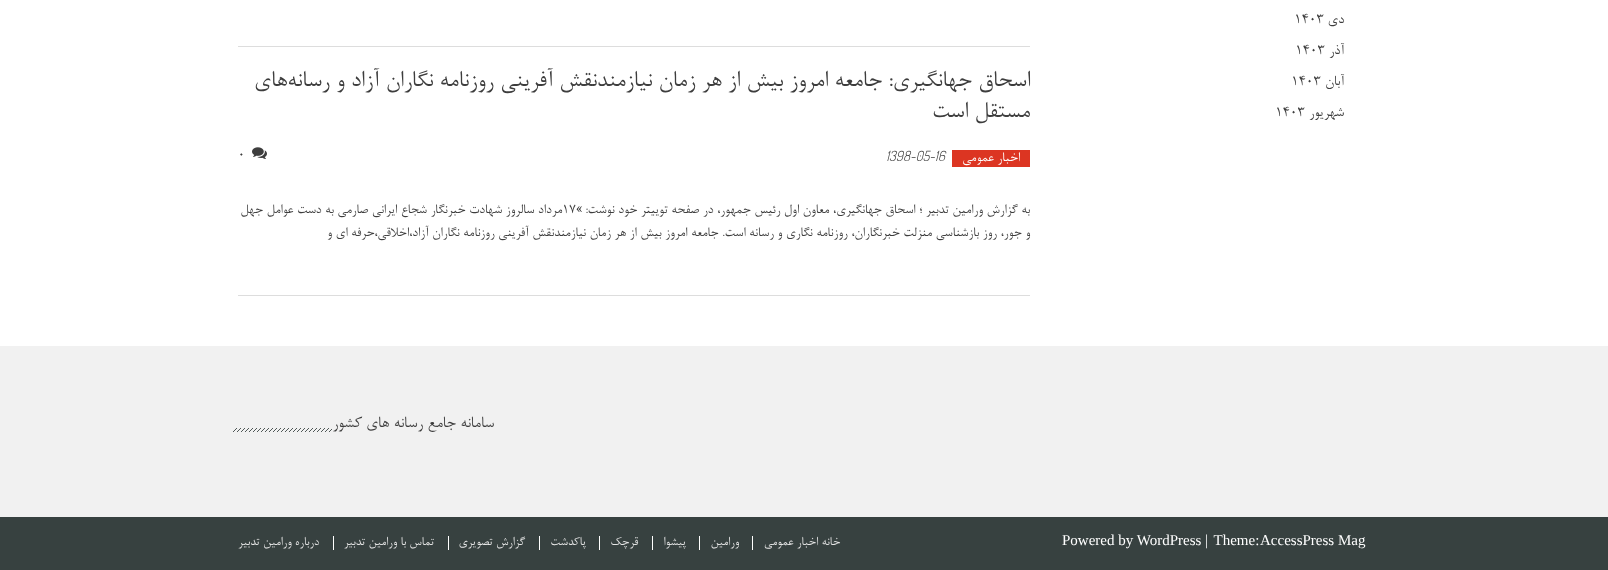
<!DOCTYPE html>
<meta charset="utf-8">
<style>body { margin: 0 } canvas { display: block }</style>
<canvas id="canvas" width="1608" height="570"></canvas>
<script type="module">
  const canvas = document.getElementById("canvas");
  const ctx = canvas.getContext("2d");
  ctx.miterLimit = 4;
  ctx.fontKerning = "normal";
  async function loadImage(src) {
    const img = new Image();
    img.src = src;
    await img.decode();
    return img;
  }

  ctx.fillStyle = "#ffffff";
  ctx.fillRect(0, 0, 1608, 570);
  ctx.direction = "rtl";
  ctx.font = "16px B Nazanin";
  ctx.fillStyle = "#3d3d3d";
  ctx.fillText("دی", 1344, 23);
  ctx.direction = "ltr";
  ctx.fillText("۱۴۰۳", 1294, 23);
  ctx.direction = "rtl";
  ctx.fillText("آذر", 1344, 54);
  ctx.direction = "ltr";
  ctx.fillText("۱۴۰۳", 1295, 54);
  ctx.direction = "rtl";
  ctx.fillText("آبان", 1344, 85);
  ctx.direction = "ltr";
  ctx.fillText("۱۴۰۳", 1291, 85);
  ctx.direction = "rtl";
  ctx.fillText("شهریور", 1344, 116);
  ctx.direction = "ltr";
  ctx.fillText("۱۴۰۳", 1275, 116);
  ctx.fillStyle = "#dddddd";
  ctx.fillRect(238, 46, 792, 1);
  ctx.fillRect(238, 295, 792, 1);
  ctx.direction = "rtl";
  ctx.font = "26px B Nazanin";
  ctx.fillStyle = "#3d3d3d";
  ctx.fillText("اسحاق جهانگیری: جامعه امروز بیش از هر زمان نیازمندنقش آفرینی روزنامه نگاران آزاد و رسانه‌های", 1030, 86);
  ctx.fillText("مستقل است", 1030, 117);
  ctx.fillStyle = "#dc3522";
  ctx.fillRect(952, 150, 78, 17);
  ctx.font = "15px B Nazanin";
  ctx.fillStyle = "#ffffff";
  ctx.fillText("اخبار عمومی", 1020, 161);
  ctx.direction = "ltr";
  ctx.font = "italic 300 14px Dosis";
  ctx.fillStyle = "#3d3d3d";
  ctx.fillText("1398-05-16", 886, 161);
  ctx.drawImage(await loadImage("img1.png"), 252, 147, 15, 12);
  ctx.font = "15px B Nazanin";
  ctx.fillText("0", 238, 158);
  ctx.direction = "rtl";
  ctx.fillText("به گزارش ورامین تدبیر ؛ اسحاق جهانگیری، معاون اول رئیس جمهور، در صفحه توییتر خود نوشت:", 1030, 213);
  ctx.direction = "ltr";
  ctx.fillText("‌١٧«", 562, 213);
  ctx.direction = "rtl";
  ctx.fillText("مرداد سالروز شهادت خبرنگار شجاع ایرانی صارمی به دست عوامل جهل", 562, 213);
  ctx.fillText("و جور، روز بازشناسی منزلت خبرنگاران، روزنامه نگاری و رسانه است. جامعه امروز بیش از هر زمان نیازمندنقش آفرینی روزنامه نگاران آزاد،اخلاقی،حرفه ای و", 1030, 236);
  ctx.fillStyle = "#f1f1f1";
  ctx.fillRect(0, 346, 1608, 171);
  ctx.drawImage(await loadImage("img2.png"), 233, 428, 99, 4);
  ctx.font = "18px B Nazanin";
  ctx.fillStyle = "#3d3d3d";
  ctx.fillText("سامانه جامع رسانه های کشور", 494, 427);
  ctx.fillStyle = "#374140";
  ctx.fillRect(0, 517, 1608, 53);
  ctx.direction = "ltr";
  ctx.font = "15px Liberation Serif";
  ctx.fillStyle = "#ffffff";
  ctx.fillText("AccessPress Mag", 1260, 545);
  ctx.wordSpacing = "2px";
  ctx.fillText("| Theme:", 1205, 545);
  ctx.wordSpacing = "0px";
  ctx.fillText("Powered by WordPress", 1062, 545);
  ctx.direction = "rtl";
  ctx.font = "14px B Nazanin";
  ctx.fillStyle = "#e6e6e6";
  ctx.fillText("خانه", 840, 545);
  ctx.fillStyle = "#ffffff";
  ctx.fillRect(752, 536, 1, 14);
  ctx.fillStyle = "#e6e6e6";
  ctx.fillText("اخبار عمومی", 818, 545);
  ctx.fillStyle = "#ffffff";
  ctx.fillRect(699, 536, 1, 14);
  ctx.fillStyle = "#e6e6e6";
  ctx.fillText("ورامین", 739, 545);
  ctx.fillStyle = "#ffffff";
  ctx.fillRect(652, 536, 1, 14);
  ctx.fillStyle = "#e6e6e6";
  ctx.fillText("پیشوا", 686, 545);
  ctx.fillStyle = "#ffffff";
  ctx.fillRect(599, 536, 1, 14);
  ctx.fillStyle = "#e6e6e6";
  ctx.fillText("قرچک", 638, 545);
  ctx.fillStyle = "#ffffff";
  ctx.fillRect(539, 536, 1, 14);
  ctx.fillStyle = "#e6e6e6";
  ctx.fillText("پاکدشت", 586, 545);
  ctx.fillStyle = "#ffffff";
  ctx.fillRect(448, 536, 1, 14);
  ctx.fillStyle = "#e6e6e6";
  ctx.fillText("گزارش تصویری", 525, 545);
  ctx.fillStyle = "#ffffff";
  ctx.fillRect(333, 536, 1, 14);
  ctx.fillStyle = "#e6e6e6";
  ctx.fillText("تماس با ورامین تدبیر", 434, 545);
  ctx.fillText("درباره ورامین تدبیر", 319, 545);
</script>
